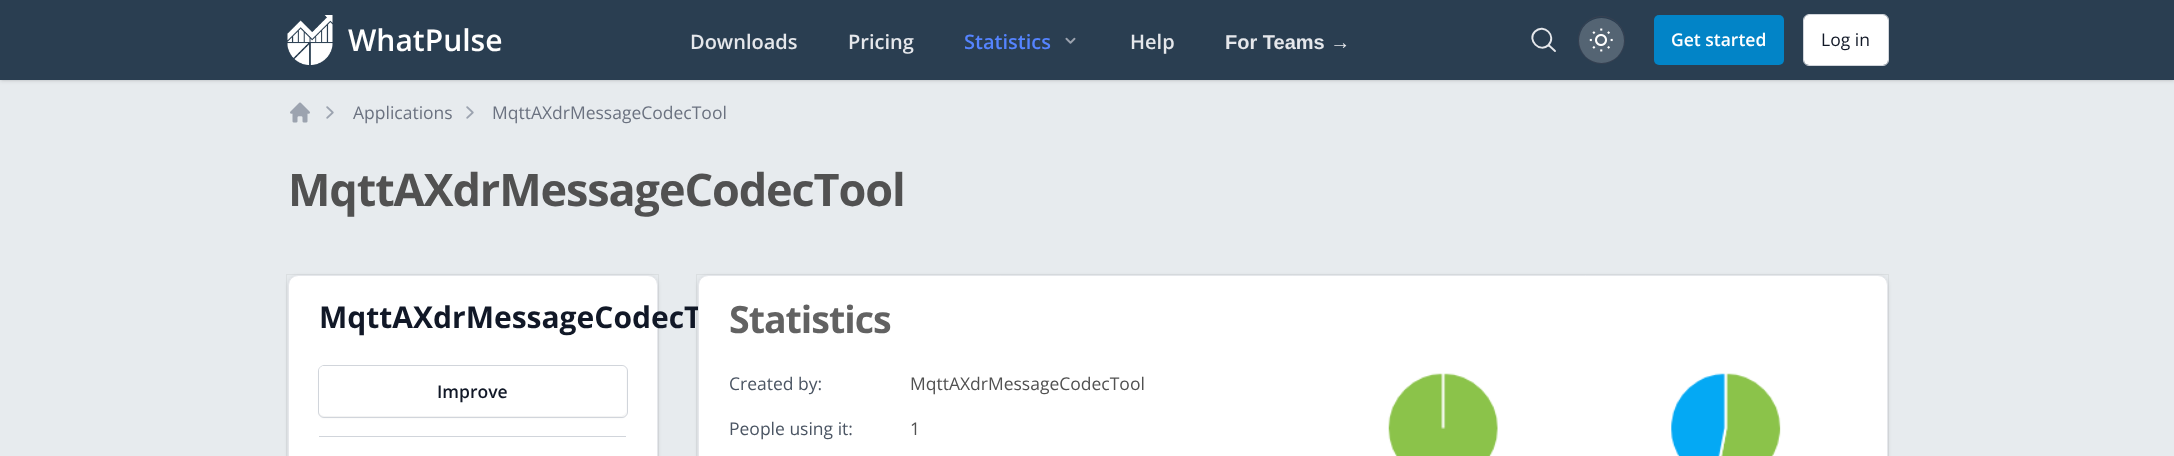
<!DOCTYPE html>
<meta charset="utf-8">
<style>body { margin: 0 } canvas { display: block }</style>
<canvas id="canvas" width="2174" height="456"></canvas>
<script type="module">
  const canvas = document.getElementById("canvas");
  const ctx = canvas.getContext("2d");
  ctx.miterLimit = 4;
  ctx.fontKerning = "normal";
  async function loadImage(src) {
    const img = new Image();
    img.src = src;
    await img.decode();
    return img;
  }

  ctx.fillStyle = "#e7ebee";
  ctx.fillRect(0, 0, 2174, 456);
  ctx.fillStyle = "rgba(0, 0, 0, 0.1)";
  ctx.filter = "blur(1px)";
  ctx.beginPath();
  ctx.rect(1, 3, 2173, 77);
  ctx.fill();
  ctx.filter = "none";
  ctx.filter = "blur(2px)";
  ctx.beginPath();
  ctx.rect(0, 1, 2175, 80);
  ctx.fill();
  ctx.filter = "none";
  ctx.fillStyle = "#2a3e51";
  ctx.fillRect(0, 0, 2174, 80);
  ctx.drawImage(await loadImage("img1.png"), 287, 15, 46, 50);
  ctx.font = "600 30px Open Sans";
  ctx.fillStyle = "#ffffff";
  ctx.fillText("WhatPulse", 348, 51);
  ctx.font = "600 20px Open Sans";
  ctx.fillStyle = "#e5e7eb";
  ctx.fillText("Downloads", 690, 49);
  ctx.fillText("Pricing", 848, 49);
  ctx.fillStyle = "#5584ff";
  ctx.fillText("Statistics", 964, 49);
  ctx.drawImage(await loadImage("img2.png"), 1065, 37, 11, 7);
  ctx.fillStyle = "#e5e7eb";
  ctx.fillText("Help", 1130, 49);
  ctx.font = "bold 20px Liberation Sans";
  ctx.fillText("For Teams →", 1225, 49);
  ctx.beginPath();
  ctx.moveTo(1555, 51);
  ctx.lineTo(1548.5, 45);
  ctx.moveTo(1548.5, 45);
  ctx.bezierCurveTo(1557, 36, 1544, 23, 1535, 31.5);
  ctx.bezierCurveTo(1526.5, 40, 1540, 53.5, 1548.5, 45);
  ctx.closePath();
  ctx.strokeStyle = "#e5e7eb";
  ctx.lineWidth = 1.9;
  ctx.lineCap = "round";
  ctx.lineJoin = "round";
  ctx.stroke();
  ctx.beginPath();
  ctx.roundRect(1578.5, 16.5, 46, 47, 23);
  ctx.strokeStyle = "#374151";
  ctx.lineWidth = 1;
  ctx.lineJoin = "miter";
  ctx.stroke();
  ctx.fillStyle = "rgba(255, 255, 255, 0.2)";
  ctx.beginPath();
  ctx.arc(1601.5, 40.5, 22.5, 0, Math.PI * 2);
  ctx.fill();
  ctx.drawImage(await loadImage("img3.png"), 1589, 28, 24, 24);
  ctx.fillStyle = "#0284c7";
  ctx.beginPath();
  ctx.roundRect(1654, 15, 130, 50, 5);
  ctx.fill();
  ctx.font = "600 17.5px Open Sans";
  ctx.fillStyle = "#ffffff";
  ctx.fillText("Get started", 1671, 46);
  ctx.beginPath();
  ctx.roundRect(1803.5, 14.5, 85, 51, 5.5);
  ctx.strokeStyle = "#d1d5db";
  ctx.stroke();
  ctx.beginPath();
  ctx.roundRect(1804, 15, 84, 50, 5);
  ctx.fill();
  ctx.font = "17.5px Open Sans";
  ctx.fillStyle = "#111827";
  ctx.fillText("Log in", 1821, 46);
  ctx.drawImage(await loadImage("img4.png"), 290, 102, 20, 21);
  ctx.drawImage(await loadImage("img5.png"), 326, 106, 8, 13);
  ctx.fillStyle = "#6b7280";
  ctx.fillText("Applications", 353, 119);
  ctx.drawImage(await loadImage("img5.png"), 466, 106, 8, 13);
  ctx.fillText("MqttAXdrMessageCodecTool", 492, 119);
  ctx.letterSpacing = "-1.1px";
  ctx.font = "bold 45px Open Sans";
  ctx.fillStyle = "#515151";
  ctx.fillText("MqttAXdrMessageCodecTool", 288, 206);
  ctx.fillStyle = "rgba(0, 0, 0, 0.1)";
  ctx.filter = "blur(2px)";
  ctx.beginPath();
  ctx.roundRect(288, 276, 370, 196, 10);
  ctx.fill();
  ctx.filter = "none";
  ctx.strokeStyle = "rgba(0, 0, 0, 0.05)";
  ctx.strokeRect(286.5, 274.5, 372, 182);
  ctx.fillStyle = "#ffffff";
  ctx.beginPath();
  ctx.roundRect(288.5, 275.5, 369, 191, 9.5);
  ctx.fill();
  ctx.strokeStyle = "#e5e7eb";
  ctx.stroke();
  ctx.letterSpacing = "0px";
  ctx.font = "bold 30px Open Sans";
  ctx.fillStyle = "#111827";
  ctx.fillText("MqttAXdrMessageCodecT", 319, 328);
  ctx.fillStyle = "rgba(0, 0, 0, 0.05)";
  ctx.filter = "blur(1px)";
  ctx.beginPath();
  ctx.roundRect(319, 368, 307, 50, 5);
  ctx.fill();
  ctx.filter = "none";
  ctx.beginPath();
  ctx.roundRect(318.5, 365.5, 309, 52, 5.5);
  ctx.strokeStyle = "#d1d5db";
  ctx.stroke();
  ctx.fillStyle = "#ffffff";
  ctx.beginPath();
  ctx.roundRect(319, 366, 307, 50, 5);
  ctx.fill();
  ctx.font = "600 17.5px Open Sans";
  ctx.fillStyle = "#111827";
  ctx.fillText("Improve", 437, 398);
  ctx.fillStyle = "#d1d5db";
  ctx.fillRect(319, 436, 307, 1);
  ctx.fillStyle = "rgba(0, 0, 0, 0.1)";
  ctx.filter = "blur(2px)";
  ctx.beginPath();
  ctx.roundRect(698, 276, 1190, 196, 10);
  ctx.fill();
  ctx.filter = "none";
  ctx.strokeStyle = "rgba(0, 0, 0, 0.05)";
  ctx.strokeRect(696.5, 274.5, 1192, 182);
  ctx.fillStyle = "#ffffff";
  ctx.beginPath();
  ctx.roundRect(698.5, 275.5, 1189, 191, 9.5);
  ctx.fill();
  ctx.strokeStyle = "#e5e7eb";
  ctx.stroke();
  ctx.letterSpacing = "-1px";
  ctx.font = "bold 37.5px Open Sans";
  ctx.fillStyle = "#626262";
  ctx.fillText("Statistics", 729, 333);
  ctx.letterSpacing = "0px";
  ctx.font = "17.5px Open Sans";
  ctx.fillStyle = "#4b5563";
  ctx.fillText("Created by:", 729, 390);
  ctx.fillStyle = "#515151";
  ctx.fillText("MqttAXdrMessageCodecTool", 910, 390);
  ctx.fillStyle = "#4b5563";
  ctx.fillText("People using it:", 729, 435);
  ctx.fillStyle = "#515151";
  ctx.fillText("1", 910, 435);
  ctx.drawImage(await loadImage("img6.png"), 1388, 373, 110, 83);
  ctx.drawImage(await loadImage("img7.png"), 1671, 373, 110, 83);
</script>
